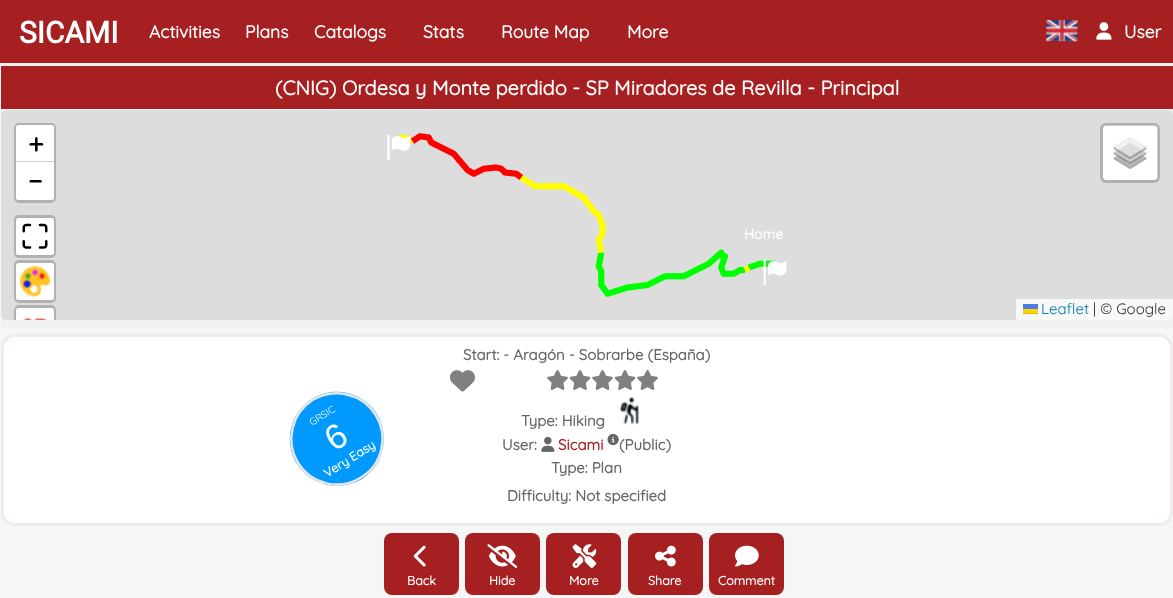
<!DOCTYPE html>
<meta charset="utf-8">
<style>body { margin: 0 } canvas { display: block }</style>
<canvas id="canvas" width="1173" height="598"></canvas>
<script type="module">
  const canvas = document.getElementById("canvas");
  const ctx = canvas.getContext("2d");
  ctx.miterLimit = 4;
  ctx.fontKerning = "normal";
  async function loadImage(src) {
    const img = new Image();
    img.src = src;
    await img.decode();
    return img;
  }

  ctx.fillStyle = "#f6f6f6";
  ctx.fillRect(0, 0, 1173, 598);
  ctx.fillStyle = "#a61f21";
  ctx.fillRect(0, 0, 1173, 63);
  ctx.font = "bold 30px Roboto";
  ctx.fillStyle = "#ffffff";
  ctx.fillText("SICAMI", 19, 43);
  ctx.font = "bold 17.5px Quicksand";
  ctx.fillText("Activities", 149, 38);
  ctx.fillText("Plans", 245, 38);
  ctx.fillText("Catalogs", 314, 38);
  ctx.fillText("Stats", 423, 38);
  ctx.fillText("Route Map", 501, 38);
  ctx.fillText("More", 627, 38);
  ctx.drawImage(await loadImage("img1.png"), 1046, 20, 32, 22);
  ctx.drawImage(await loadImage("img2.png"), 1096, 22, 16, 18);
  ctx.fillText("User", 1124, 38);
  ctx.fillStyle = "#f1f1f1";
  ctx.fillRect(1, 63, 1172, 265);
  ctx.fillStyle = "#a61f21";
  ctx.fillRect(1, 66, 1172, 43);
  ctx.font = "bold 20px Quicksand";
  ctx.fillStyle = "#ffffff";
  ctx.fillText("(CNIG) Ordesa y Monte perdido - SP Miradores de Revilla - Principal", 275, 95);
  ctx.fillStyle = "#dddddd";
  ctx.beginPath();
  ctx.roundRect(1, 110, 1172, 210, 6);
  ctx.fill();
  ctx.beginPath();
  ctx.roundRect(15.5, 124.5, 39, 77, 3.5);
  ctx.strokeStyle = "#b1b1b1";
  ctx.lineWidth = 3;
  ctx.stroke();
  ctx.fillStyle = "#ffffff";
  ctx.beginPath();
  ctx.roundRect(16, 125, 38, 38, [2.5, 2.5, 0, 0]);
  ctx.fill();
  ctx.fillStyle = "#cccccc";
  ctx.fillRect(16, 161, 38, 1);
  ctx.font = "bold 28px Quicksand";
  ctx.fillStyle = "#000000";
  ctx.fillText("+", 28, 154);
  ctx.fillStyle = "#ffffff";
  ctx.beginPath();
  ctx.roundRect(16, 163, 38, 37, [0, 0, 2.5, 2.5]);
  ctx.fill();
  ctx.fillStyle = "#000000";
  ctx.fillText("−", 28, 191);
  ctx.beginPath();
  ctx.roundRect(15.5, 216.5, 39, 40, 3.5);
  ctx.stroke();
  ctx.fillStyle = "#ffffff";
  ctx.beginPath();
  ctx.roundRect(16, 218, 38, 37, 2.5);
  ctx.fill();
  ctx.drawImage(await loadImage("img3.png"), 22, 223, 26, 26);
  ctx.beginPath();
  ctx.roundRect(15.5, 261.5, 39, 40, 3.5);
  ctx.stroke();
  ctx.beginPath();
  ctx.roundRect(16, 263, 38, 37, 2.5);
  ctx.fill();
  ctx.drawImage(await loadImage("img4.png"), 19, 265, 32, 32);
  ctx.fillStyle = "#b1b1b1";
  ctx.beginPath();
  ctx.moveTo(19, 305);
  ctx.bezierCurveTo(12, 305, 14, 316, 14, 320);
  ctx.lineTo(17, 320);
  ctx.lineTo(17, 310);
  ctx.bezierCurveTo(17, 309, 18, 308, 19, 308);
  ctx.lineTo(51, 308);
  ctx.bezierCurveTo(52, 308, 53, 309, 53, 310);
  ctx.lineTo(53, 320);
  ctx.lineTo(56, 320);
  ctx.bezierCurveTo(56, 316, 58, 305, 51, 305);
  ctx.closePath();
  ctx.fill();
  ctx.fillStyle = "#ffffff";
  ctx.beginPath();
  ctx.roundRect(16, 308, 38, 12, [2.5, 2.5, 0, 0]);
  ctx.fill();
  ctx.drawImage(await loadImage("img5.png"), 23, 317, 25, 3);
  ctx.beginPath();
  ctx.roundRect(1103, 125, 55, 55, 4);
  ctx.fill();
  ctx.beginPath();
  ctx.roundRect(1101.5, 124.5, 57, 57, 4.5);
  ctx.strokeStyle = "rgba(0, 0, 0, 0.2)";
  ctx.stroke();
  ctx.drawImage(await loadImage("img6.png"), 1113, 137, 34, 32);
  ctx.fillStyle = "rgba(255, 255, 255, 0.8)";
  ctx.beginPath();
  ctx.roundRect(1016, 299, 157, 21, [0, 0, 6, 0]);
  ctx.fill();
  ctx.font = "300 15px Quicksand";
  ctx.fillStyle = "#0078a8";
  ctx.fillText("Leaflet", 1041, 314);
  ctx.fillStyle = "#4c7be1";
  ctx.fillRect(1023, 304, 15, 5);
  ctx.fillStyle = "#ffd500";
  ctx.fillRect(1023, 309, 15, 4);
  ctx.fillStyle = "#e0bc00";
  ctx.fillRect(1023, 313, 15, 1);
  ctx.fillStyle = "#333333";
  ctx.fillText("| © Google", 1093, 314);
  ctx.drawImage(await loadImage("img7.png"), 398, 133, 377, 164);
  ctx.drawImage(await loadImage("img8.png"), 387, 134, 24, 26);
  ctx.font = "bold 14px Quicksand";
  ctx.fillStyle = "#ffffff";
  ctx.fillText("Home", 744, 239);
  ctx.drawImage(await loadImage("img9.png"), 763, 259, 24, 26);
  ctx.beginPath();
  ctx.roundRect(2.5, 335.5, 1169, 189, 12.5);
  ctx.fill();
  ctx.strokeStyle = "#f1ecec";
  ctx.stroke();
  ctx.font = "bold 15px Quicksand";
  ctx.fillStyle = "#666666";
  ctx.fillText("Start: - Aragón - Sobrarbe (España)", 463, 360);
  ctx.fillStyle = "#0099ff";
  ctx.beginPath();
  ctx.moveTo(312, 399);
  ctx.bezierCurveTo(334, 385, 363, 392, 377, 414);
  ctx.bezierCurveTo(390, 436, 384, 465, 362, 479);
  ctx.bezierCurveTo(340, 492, 311, 486, 297, 464);
  ctx.bezierCurveTo(283, 442, 290, 413, 312, 399);
  ctx.closePath();
  ctx.fill();
  ctx.beginPath();
  ctx.moveTo(312.5, 400);
  ctx.bezierCurveTo(334, 387, 362, 393.5, 375.5, 414.5);
  ctx.bezierCurveTo(389, 436, 382.5, 464.5, 361, 477.5);
  ctx.bezierCurveTo(339.5, 491, 311.5, 484.5, 298, 463);
  ctx.bezierCurveTo(285, 441.5, 291.5, 413.5, 312.5, 400);
  ctx.closePath();
  ctx.strokeStyle = "#e6e6e6";
  ctx.lineWidth = 2.5;
  ctx.stroke();
  ctx.font = "300 10px Quicksand";
  ctx.fillStyle = "#ffffff";
  ctx.save();
  ctx.translate(312, 426);
  ctx.rotate(-32 * Math.PI / 180);
  ctx.fillText("GRSIC", 0, 0);
  ctx.restore();
  ctx.font = "35px Liberation Sans";
  ctx.save();
  ctx.translate(334, 452);
  ctx.rotate(-32 * Math.PI / 180);
  ctx.fillText("6", 0, 0);
  ctx.restore();
  ctx.font = "bold 12.5px Quicksand";
  ctx.save();
  ctx.translate(327, 478);
  ctx.rotate(-32 * Math.PI / 180);
  ctx.fillText("Very Easy", 0, 0);
  ctx.restore();
  ctx.drawImage(await loadImage("img10.png"), 450, 370, 25, 22);
  ctx.drawImage(await loadImage("img11.png"), 547, 370, 21, 20);
  ctx.drawImage(await loadImage("img12.png"), 569, 370, 22, 20);
  ctx.drawImage(await loadImage("img11.png"), 592, 370, 21, 20);
  ctx.drawImage(await loadImage("img12.png"), 614, 370, 22, 20);
  ctx.drawImage(await loadImage("img11.png"), 637, 370, 21, 20);
  ctx.font = "bold 15px Quicksand";
  ctx.fillStyle = "#666666";
  ctx.fillText("Type: Hiking", 521, 426);
  ctx.drawImage(await loadImage("img13.png"), 619, 397, 20, 27);
  ctx.fillText("User:", 502, 450);
  ctx.drawImage(await loadImage("img14.png"), 541, 436, 14, 16);
  ctx.fillStyle = "#a61f21";
  ctx.fillText("Sicami", 558, 450);
  ctx.drawImage(await loadImage("img15.png"), 607, 433, 12, 13);
  ctx.fillStyle = "#666666";
  ctx.fillText("(Public)", 619, 450);
  ctx.fillText("Type: Plan", 551, 473);
  ctx.fillText("Difficulty: Not specified", 507, 501);
  ctx.fillStyle = "#a61f21";
  ctx.beginPath();
  ctx.roundRect(384, 533, 75, 62, 8);
  ctx.fill();
  ctx.drawImage(await loadImage("img16.png"), 413, 545, 13, 22);
  ctx.font = "bold 12.5px Quicksand";
  ctx.fillStyle = "#ffffff";
  ctx.fillText("Back", 407, 585);
  ctx.fillStyle = "#a61f21";
  ctx.beginPath();
  ctx.roundRect(465, 533, 75, 62, 8);
  ctx.fill();
  ctx.drawImage(await loadImage("img17.png"), 487, 544, 31, 24);
  ctx.fillStyle = "#ffffff";
  ctx.fillText("Hide", 489, 585);
  ctx.fillStyle = "#a61f21";
  ctx.beginPath();
  ctx.roundRect(546, 533, 75, 62, 8);
  ctx.fill();
  ctx.drawImage(await loadImage("img18.png"), 572, 544, 25, 24);
  ctx.fillStyle = "#ffffff";
  ctx.fillText("More", 569, 585);
  ctx.fillStyle = "#a61f21";
  ctx.beginPath();
  ctx.roundRect(628, 533, 75, 62, 8);
  ctx.fill();
  ctx.drawImage(await loadImage("img19.png"), 655, 545, 21, 22);
  ctx.fillStyle = "#ffffff";
  ctx.fillText("Share", 648, 585);
  ctx.fillStyle = "#a61f21";
  ctx.beginPath();
  ctx.roundRect(709, 533, 75, 62, 8);
  ctx.fill();
  ctx.drawImage(await loadImage("img20.png"), 735, 545, 24, 22);
  ctx.fillStyle = "#ffffff";
  ctx.fillText("Comment", 718, 585);
</script>
